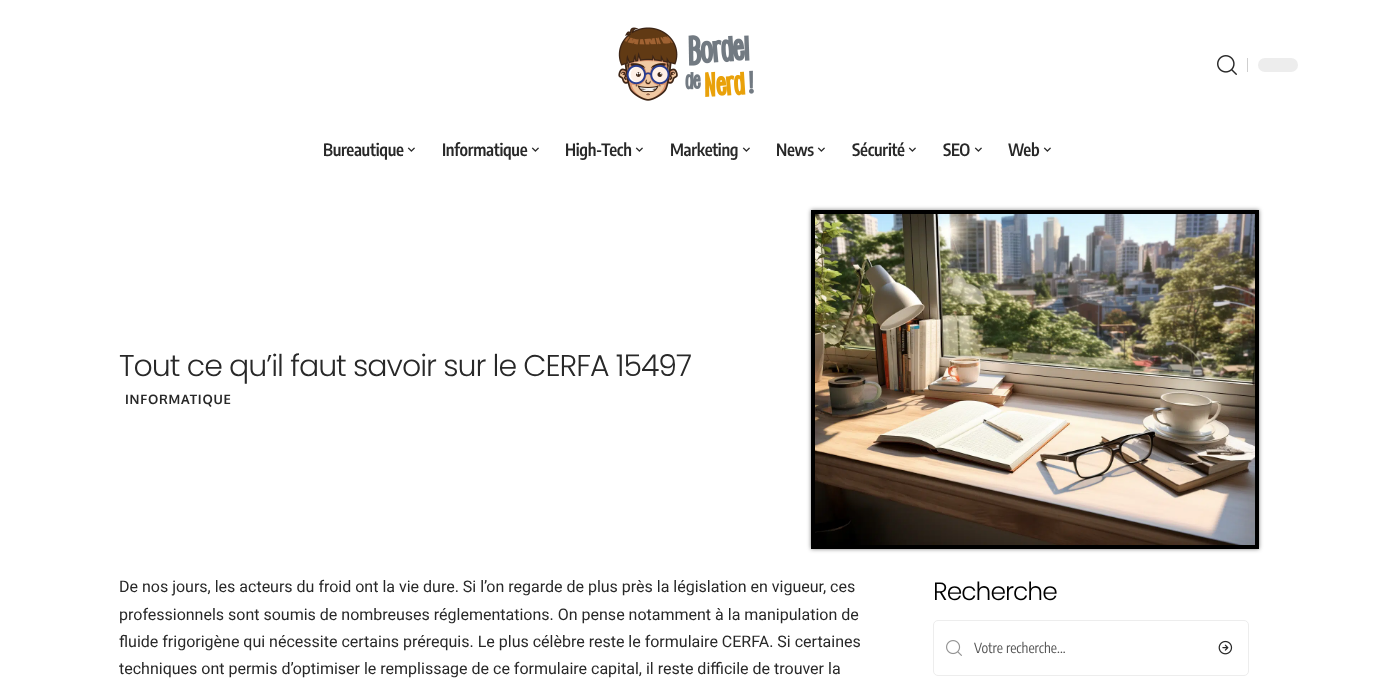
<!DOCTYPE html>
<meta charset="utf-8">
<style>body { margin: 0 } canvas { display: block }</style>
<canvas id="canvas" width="1377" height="684"></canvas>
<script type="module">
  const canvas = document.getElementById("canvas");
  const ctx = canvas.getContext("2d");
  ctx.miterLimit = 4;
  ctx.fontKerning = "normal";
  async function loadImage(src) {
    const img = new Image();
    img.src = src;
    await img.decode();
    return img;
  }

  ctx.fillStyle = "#ffffff";
  ctx.fillRect(0, 0, 1377, 684);
  ctx.drawImage(await loadImage("img1.png"), 618, 27, 136, 74);
  ctx.drawImage(await loadImage("img2.png"), 1217, 55, 20, 20);
  ctx.fillStyle = "#cfcfcf";
  ctx.fillRect(1247, 58, 1, 14);
  ctx.fillStyle = "#ededed";
  ctx.beginPath();
  ctx.roundRect(1258, 58, 40, 14, 7);
  ctx.fill();
  ctx.letterSpacing = "-0.3px";
  ctx.font = "600 17px Encode Sans Condensed";
  ctx.fillStyle = "#282828";
  ctx.fillText("Bureautique", 323, 156);
  ctx.drawImage(await loadImage("img3.png"), 407, 147, 8, 5);
  ctx.fillText("Informatique", 442, 156);
  ctx.drawImage(await loadImage("img3.png"), 531, 147, 8, 5);
  ctx.fillText("High-Tech", 565, 156);
  ctx.drawImage(await loadImage("img3.png"), 635, 147, 8, 5);
  ctx.fillText("Marketing", 670, 156);
  ctx.drawImage(await loadImage("img3.png"), 742, 147, 8, 5);
  ctx.fillText("News", 776, 156);
  ctx.drawImage(await loadImage("img3.png"), 817, 147, 8, 5);
  ctx.fillText("Sécurité", 852, 156);
  ctx.drawImage(await loadImage("img3.png"), 908, 147, 8, 5);
  ctx.fillText("SEO", 943, 156);
  ctx.drawImage(await loadImage("img3.png"), 974, 147, 8, 5);
  ctx.fillText("Web", 1008, 156);
  ctx.drawImage(await loadImage("img3.png"), 1043, 147, 8, 5);
  ctx.letterSpacing = "-1px";
  ctx.font = "300 30px Poppins";
  ctx.fillText("Tout ce qu’il faut savoir sur le CERFA 15497", 119, 376);
  ctx.letterSpacing = "0.75px";
  ctx.font = "bold 13px Oxygen";
  ctx.fillText("INFORMATIQUE", 125, 404);
  ctx.fillStyle = "rgba(0, 0, 0, 0.5)";
  ctx.filter = "blur(2px)";
  ctx.beginPath();
  ctx.rect(811, 210, 448, 339);
  ctx.fill();
  ctx.filter = "none";
  ctx.strokeStyle = "#000000";
  ctx.lineWidth = 4;
  ctx.strokeRect(813, 212, 444, 335);
  ctx.drawImage(await loadImage("img4.png"), 815, 214, 440, 331);
  ctx.letterSpacing = "0px";
  ctx.font = "16px Roboto";
  ctx.fillStyle = "#282828";
  ctx.fillText("De nos jours, les acteurs du froid ont la vie dure. Si l’on regarde de plus près la législation en vigueur, ces", 119, 592);
  ctx.fillText("professionnels sont soumis de nombreuses réglementations. On pense notamment à la manipulation de", 119, 620);
  ctx.fillText("fluide frigorigène qui nécessite certains prérequis. Le plus célèbre reste le formulaire CERFA. Si certaines", 119, 647);
  ctx.fillText("techniques ont permis d’optimiser le remplissage de ce formulaire capital, il reste difficile de trouver la", 119, 674);
  ctx.letterSpacing = "-1px";
  ctx.font = "300 25px Poppins";
  ctx.fillStyle = "#000000";
  ctx.fillText("Recherche", 933, 600);
  ctx.beginPath();
  ctx.roundRect(933.5, 620.5, 315, 55, 4.5);
  ctx.strokeStyle = "#ededed";
  ctx.lineWidth = 1;
  ctx.stroke();
  ctx.drawImage(await loadImage("img5.png"), 946, 640, 16, 16);
  ctx.letterSpacing = "0px";
  ctx.font = "14px Encode Sans Condensed";
  ctx.fillStyle = "#535353";
  ctx.fillText("Votre recherche...", 974, 653);
  ctx.drawImage(await loadImage("img6.png"), 1218, 640, 15, 15);
</script>
